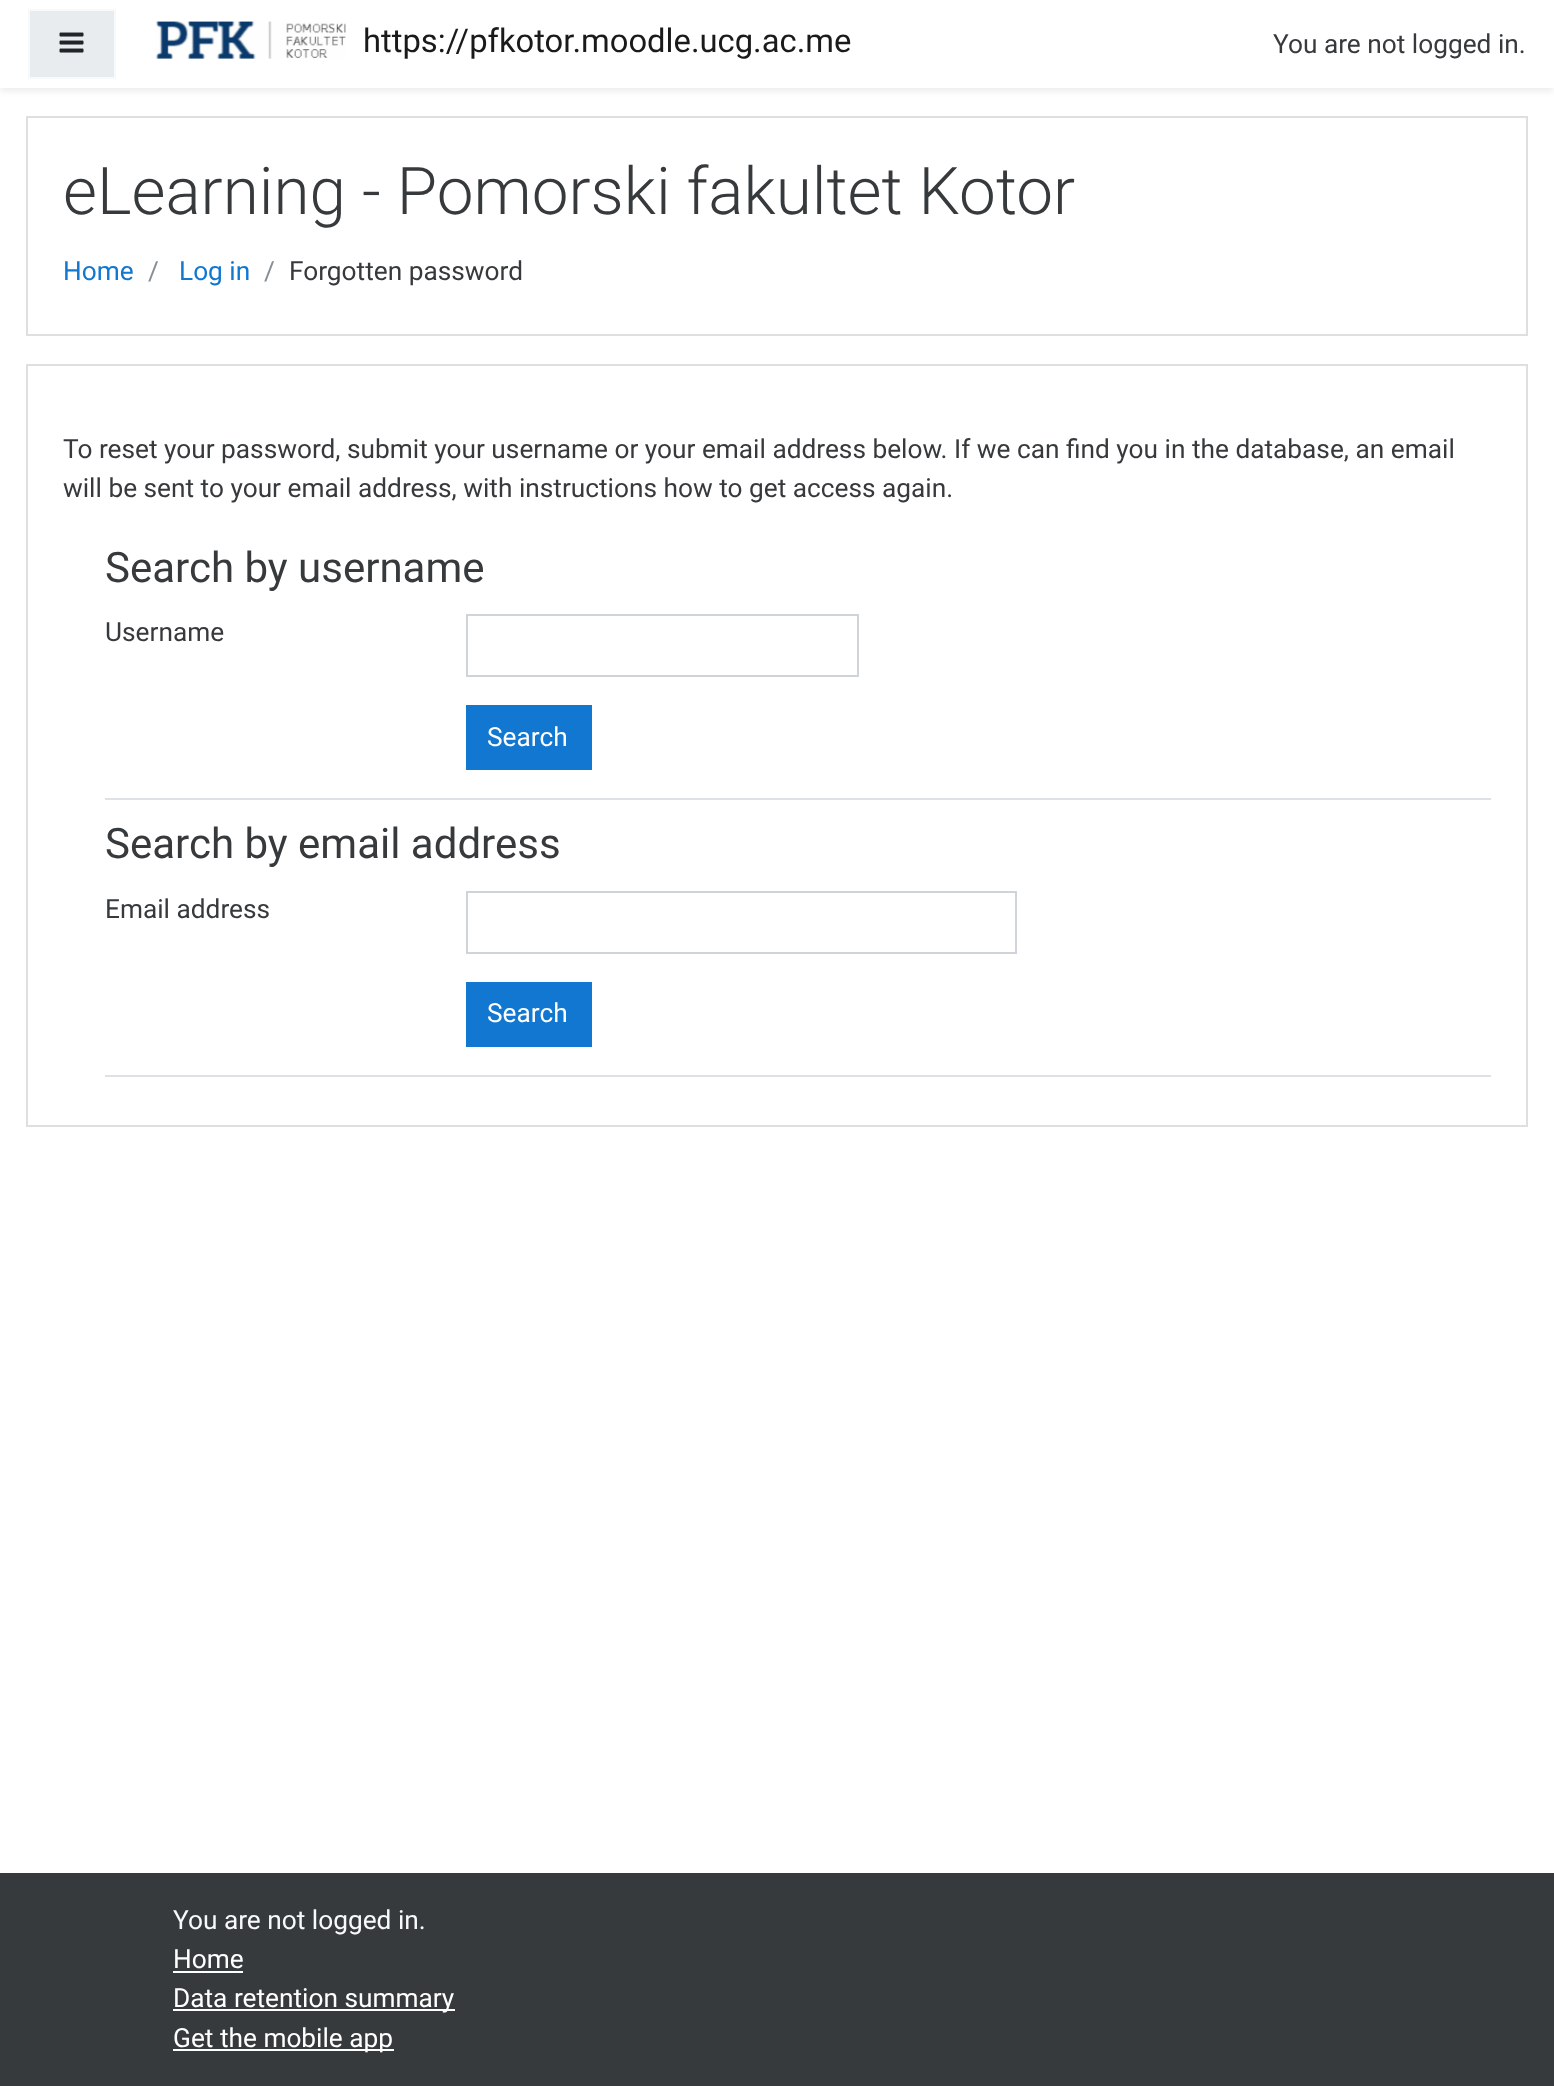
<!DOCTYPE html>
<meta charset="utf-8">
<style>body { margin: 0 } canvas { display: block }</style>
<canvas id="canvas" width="1554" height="2086"></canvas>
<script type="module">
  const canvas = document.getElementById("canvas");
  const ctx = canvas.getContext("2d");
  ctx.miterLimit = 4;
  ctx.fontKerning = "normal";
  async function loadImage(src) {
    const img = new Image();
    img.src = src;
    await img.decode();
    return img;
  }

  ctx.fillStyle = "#ffffff";
  ctx.fillRect(0, 0, 1554, 2086);
  ctx.fillStyle = "rgba(0, 0, 0, 0.08)";
  ctx.filter = "blur(3.5px)";
  ctx.beginPath();
  ctx.rect(0, 4, 1554, 87);
  ctx.fill();
  ctx.filter = "none";
  ctx.fillStyle = "#ffffff";
  ctx.fillRect(0, 0, 1554, 88);
  ctx.fillStyle = "#e9ecef";
  ctx.beginPath();
  ctx.rect(29, 10, 86, 68);
  ctx.fill();
  ctx.strokeStyle = "#f8f9fa";
  ctx.lineWidth = 2;
  ctx.stroke();
  ctx.drawImage(await loadImage("img1.png"), 59, 32, 25, 21);
  ctx.drawImage(await loadImage("img2.png"), 155, 21, 191, 38);
  ctx.font = "32.75px Roboto";
  ctx.fillStyle = "#1a1a1a";
  ctx.fillText("https://pfkotor.moodle.ucg.ac.me", 363, 52);
  ctx.font = "26.25px Roboto";
  ctx.fillStyle = "#373a3c";
  ctx.fillText("You are not logged in.", 1273, 53);
  ctx.strokeStyle = "#dfdfdf";
  ctx.strokeRect(27, 117, 1500, 218);
  ctx.font = "300 65.6px Roboto";
  ctx.fillText("eLearning - Pomorski fakultet Kotor", 63, 214);
  ctx.font = "26.25px Roboto";
  ctx.fillStyle = "#1177d1";
  ctx.fillText("Home", 63, 280);
  ctx.fillStyle = "#868e96";
  ctx.fillText("/", 148, 280);
  ctx.fillStyle = "#1177d1";
  ctx.fillText("Log in", 179, 280);
  ctx.fillStyle = "#868e96";
  ctx.fillText("/", 264, 280);
  ctx.fillStyle = "#373a3c";
  ctx.fillText("Forgotten password", 289, 280);
  ctx.strokeRect(27, 365, 1500, 761);
  ctx.fillText("To reset your password, submit your username or your email address below. If we can find you in the database, an email", 63, 458);
  ctx.fillText("will be sent to your email address, with instructions how to get access again.", 63, 497);
  ctx.fillStyle = "#dee2e6";
  ctx.fillRect(105, 798, 1386, 2);
  ctx.font = "42px Roboto";
  ctx.fillStyle = "#373a3c";
  ctx.fillText("Search by username", 105, 582);
  ctx.font = "26.25px Roboto";
  ctx.fillText("Username", 105, 641);
  ctx.strokeStyle = "#ced4da";
  ctx.strokeRect(467, 615, 391, 61);
  ctx.fillStyle = "#1177d1";
  ctx.fillRect(466, 705, 126, 65);
  ctx.fillStyle = "#ffffff";
  ctx.fillText("Search", 487, 746);
  ctx.fillStyle = "#dee2e6";
  ctx.fillRect(105, 1075, 1386, 2);
  ctx.font = "42px Roboto";
  ctx.fillStyle = "#373a3c";
  ctx.fillText("Search by email address", 105, 858);
  ctx.font = "26.25px Roboto";
  ctx.fillText("Email address", 105, 918);
  ctx.strokeRect(467, 892, 549, 61);
  ctx.fillStyle = "#1177d1";
  ctx.fillRect(466, 982, 126, 65);
  ctx.fillStyle = "#ffffff";
  ctx.fillText("Search", 487, 1022);
  ctx.fillStyle = "#373a3c";
  ctx.fillRect(0, 1873, 1554, 213);
  ctx.fillStyle = "#f8f9fa";
  ctx.fillText("You are not logged in.", 173, 1929);
  ctx.fillStyle = "#ffffff";
  ctx.fillText("Home", 173, 1968);
  ctx.fillRect(173, 1971, 70, 2);
  ctx.fillRect(173, 2009, 282, 2);
  ctx.fillText("Data retention summary", 173, 2007);
  ctx.fillRect(173, 2049, 221, 2);
  ctx.fillText("Get the mobile app", 173, 2047);
</script>
